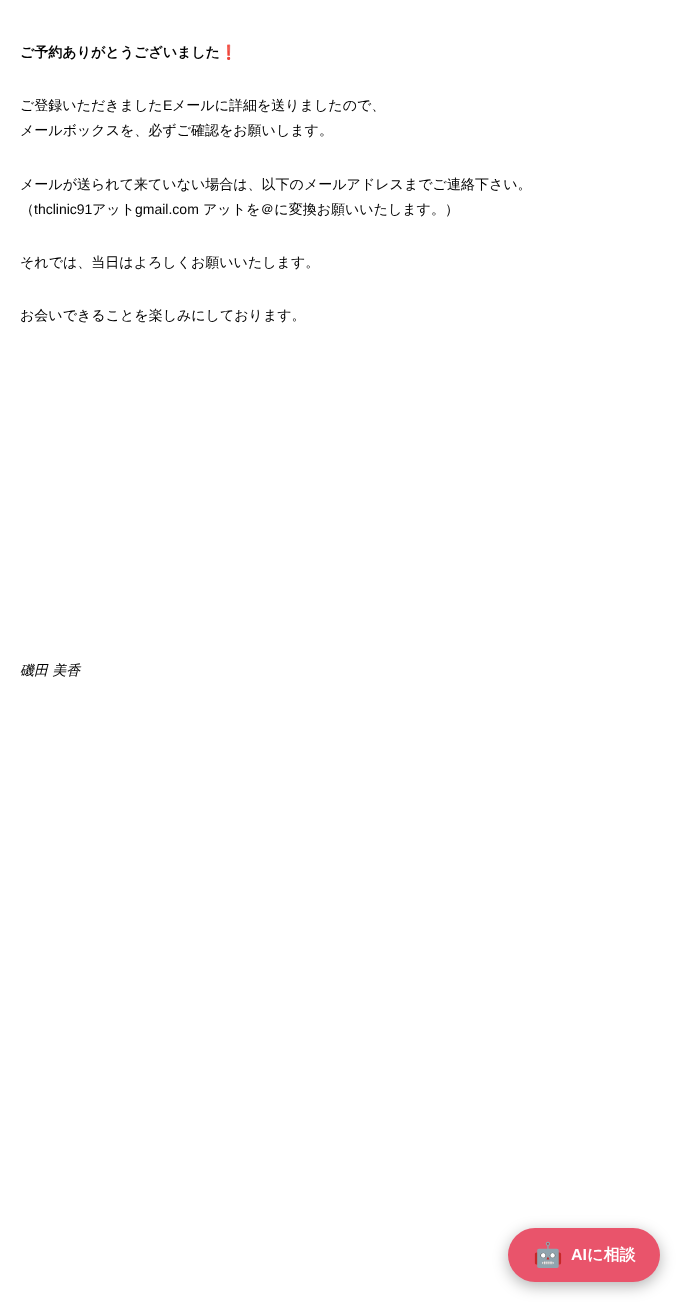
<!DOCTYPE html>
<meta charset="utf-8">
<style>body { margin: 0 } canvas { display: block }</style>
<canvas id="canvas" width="680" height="1302"></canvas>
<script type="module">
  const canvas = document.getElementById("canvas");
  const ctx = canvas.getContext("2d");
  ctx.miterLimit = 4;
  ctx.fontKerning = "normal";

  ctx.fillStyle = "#ffffff";
  ctx.fillRect(0, 0, 680, 1302);
  ctx.font = "bold 14px WenQuanYi Zen Hei";
  ctx.fillStyle = "#000000";
  ctx.fillText("ご予約ありがとうございました", 20, 57);
  ctx.font = "bold 14px Noto Color Emoji";
  ctx.fillText("❗", 220, 57);
  ctx.font = "500 14px WenQuanYi Zen Hei";
  ctx.fillText("ご登録いただきました", 20, 110);
  ctx.font = "14px Liberation Sans";
  ctx.fillText("E", 163, 110);
  ctx.font = "500 14px WenQuanYi Zen Hei";
  ctx.fillText("メールに詳細を送りましたので、", 172, 110);
  ctx.fillText("メールボックスを、必ずご確認をお願いします。", 20, 135);
  ctx.fillText("メールが送られて来ていない場合は、以下のメールアドレスまでご連絡下さい。", 20, 189);
  ctx.fillText("（", 20, 214);
  ctx.font = "14px Liberation Sans";
  ctx.fillText("thclinic91", 34, 214);
  ctx.font = "500 14px WenQuanYi Zen Hei";
  ctx.fillText("アット", 92, 214);
  ctx.font = "14px Liberation Sans";
  ctx.fillText("gmail.com", 135, 214);
  ctx.font = "500 14px WenQuanYi Zen Hei";
  ctx.fillText("アットを＠に変換お願いいたします。）", 203, 214);
  ctx.fillText("それでは、当日はよろしくお願いいたします。", 20, 267);
  ctx.fillText("お会いできることを楽しみにしております。", 20, 320);
  ctx.font = "italic 500 14px WenQuanYi Zen Hei";
  ctx.fillText("磯田 美香", 20, 675);
  ctx.fillStyle = "rgba(0, 0, 0, 0.3)";
  ctx.filter = "blur(7.5px)";
  ctx.beginPath();
  ctx.roundRect(508, 1232, 152, 54, 27);
  ctx.fill();
  ctx.filter = "none";
  ctx.fillStyle = "#e9546b";
  ctx.beginPath();
  ctx.roundRect(508, 1228, 152, 54, 27);
  ctx.fill();
  ctx.font = "bold 24px Noto Color Emoji";
  ctx.fillStyle = "#ffffff";
  ctx.fillText("🤖", 533, 1263);
  ctx.font = "bold 16px Liberation Sans";
  ctx.fillText("AI", 571, 1260);
  ctx.font = "bold 16px WenQuanYi Zen Hei";
  ctx.fillText("に相談", 587, 1260);
</script>
